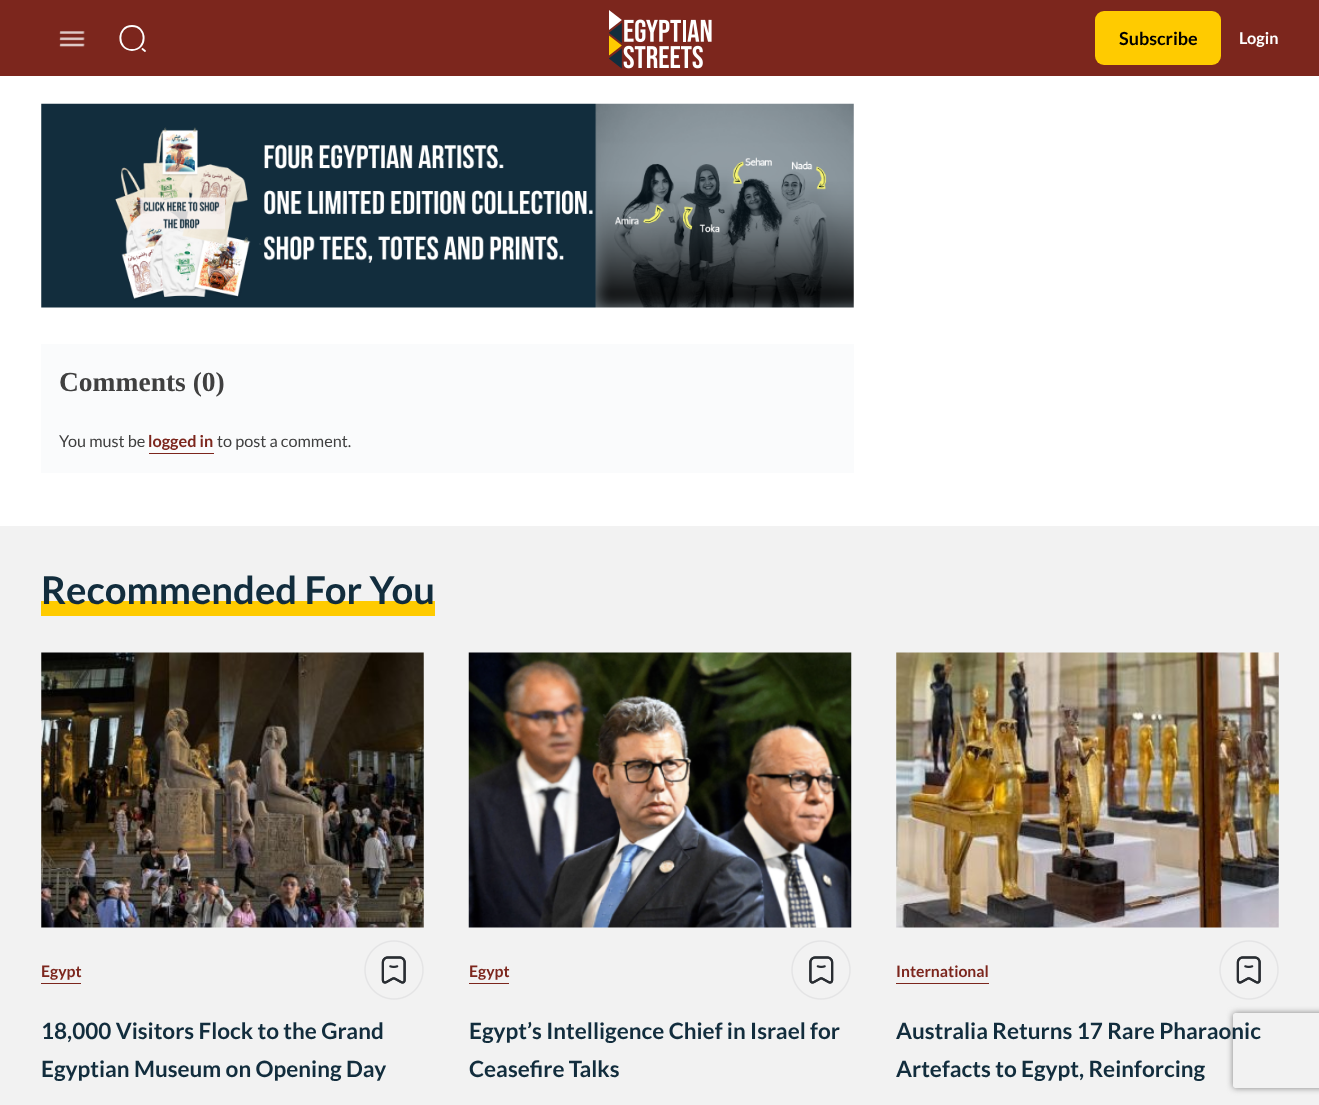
<!DOCTYPE html>
<meta charset="utf-8">
<style>body { margin: 0 } canvas { display: block }</style>
<canvas id="canvas" width="1319" height="1105"></canvas>
<script type="module">
  const canvas = document.getElementById("canvas");
  const ctx = canvas.getContext("2d");
  ctx.miterLimit = 4;
  ctx.fontKerning = "normal";
  async function loadImage(src) {
    const img = new Image();
    img.src = src;
    await img.decode();
    return img;
  }

  ctx.fillStyle = "#ffffff";
  ctx.fillRect(0, 0, 1319, 1105);
  ctx.fillStyle = "#7c261d";
  ctx.fillRect(0, 0, 1319, 76);
  ctx.drawImage(await loadImage("img1.png"), 59, 31, 26, 16);
  ctx.beginPath();
  ctx.moveTo(132, 50);
  ctx.bezierCurveTo(147.5, 50, 147.5, 26, 132, 26);
  ctx.bezierCurveTo(116.5, 26, 116.5, 50, 132, 50);
  ctx.closePath();
  ctx.moveTo(145, 51);
  ctx.lineTo(142.5, 49);
  ctx.strokeStyle = "#ffffff";
  ctx.lineWidth = 1.9;
  ctx.lineCap = "round";
  ctx.lineJoin = "round";
  ctx.stroke();
  ctx.drawImage(await loadImage("img2.png"), 609, 10, 103, 59);
  ctx.fillStyle = "#ffcb00";
  ctx.beginPath();
  ctx.roundRect(1095, 11, 126, 54, 9);
  ctx.fill();
  ctx.font = "bold 18px Lato";
  ctx.fillStyle = "#000000";
  ctx.fillText("Subscribe", 1119, 45);
  ctx.font = "bold 16.25px Lato";
  ctx.fillStyle = "#ffffff";
  ctx.fillText("Login", 1239, 44);
  ctx.drawImage(await loadImage("img3.png"), 41, 103, 813, 205);
  ctx.fillStyle = "#fafbfc";
  ctx.fillRect(41, 344, 813, 129);
  ctx.font = "bold 27.5px Liberation Serif";
  ctx.fillStyle = "#404040";
  ctx.fillText("Comments (0)", 59, 391);
  ctx.font = "16.25px Lato";
  ctx.fillText("You must be", 59, 447);
  ctx.font = "bold 16.25px Lato";
  ctx.fillStyle = "#7c261d";
  ctx.fillText("logged in", 148, 447);
  ctx.fillRect(149, 453, 65, 1);
  ctx.font = "16.25px Lato";
  ctx.fillStyle = "#404040";
  ctx.fillText("to post a comment.", 217, 447);
  ctx.fillStyle = "#f2f2f2";
  ctx.fillRect(0, 526, 1319, 579);
  ctx.fillStyle = "#ffcb00";
  ctx.fillRect(41, 601, 394, 15);
  ctx.font = "bold 38.25px Lato";
  ctx.fillStyle = "#122d3d";
  ctx.fillText("Recommended For You", 41, 604);
  ctx.drawImage(await loadImage("img4.png"), 41, 652, 383, 276);
  ctx.font = "bold 15.75px Lato";
  ctx.fillStyle = "#7c261d";
  ctx.fillText("Egypt", 41, 977);
  ctx.fillRect(41, 983, 40, 1);
  ctx.drawImage(await loadImage("img5.png"), 364, 940, 60, 60);
  ctx.font = "bold 22.5px Lato";
  ctx.fillStyle = "#122d3d";
  ctx.fillText("18,000 Visitors Flock to the Grand", 41, 1039);
  ctx.fillText("Egyptian Museum on Opening Day", 41, 1077);
  ctx.drawImage(await loadImage("img6.png"), 468, 652, 384, 276);
  ctx.font = "bold 15.75px Lato";
  ctx.fillStyle = "#7c261d";
  ctx.fillText("Egypt", 469, 977);
  ctx.fillRect(469, 983, 40, 1);
  ctx.drawImage(await loadImage("img7.png"), 791, 940, 60, 60);
  ctx.font = "bold 22.5px Lato";
  ctx.fillStyle = "#122d3d";
  ctx.fillText("Egypt’s Intelligence Chief in Israel for", 469, 1039);
  ctx.fillText("Ceasefire Talks", 469, 1077);
  ctx.drawImage(await loadImage("img8.png"), 896, 652, 383, 276);
  ctx.font = "bold 15.75px Lato";
  ctx.fillStyle = "#7c261d";
  ctx.fillText("International", 896, 977);
  ctx.fillRect(896, 983, 93, 1);
  ctx.drawImage(await loadImage("img5.png"), 1219, 940, 60, 60);
  ctx.font = "bold 22.5px Lato";
  ctx.fillStyle = "#122d3d";
  ctx.fillText("Australia Returns 17 Rare Pharaonic", 896, 1039);
  ctx.fillText("Artefacts to Egypt, Reinforcing", 896, 1077);
  ctx.save();
  ctx.beginPath();
  ctx.moveTo(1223, 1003);
  ctx.lineTo(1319, 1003);
  ctx.lineTo(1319, 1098);
  ctx.lineTo(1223, 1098);
  ctx.closePath();
  ctx.moveTo(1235.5, 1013);
  ctx.lineTo(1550.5, 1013);
  ctx.bezierCurveTo(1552, 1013, 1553, 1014, 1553, 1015.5);
  ctx.lineTo(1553, 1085.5);
  ctx.bezierCurveTo(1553, 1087, 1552, 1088, 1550.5, 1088);
  ctx.lineTo(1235.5, 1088);
  ctx.bezierCurveTo(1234, 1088, 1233, 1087, 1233, 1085.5);
  ctx.lineTo(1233, 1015.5);
  ctx.bezierCurveTo(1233, 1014, 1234, 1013, 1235.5, 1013);
  ctx.closePath();
  ctx.clip("evenodd");
  ctx.fillStyle = "#808080";
  ctx.filter = "blur(3px)";
  ctx.beginPath();
  ctx.roundRect(1233, 1013, 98, 75, 2.5);
  ctx.fill();
  ctx.filter = "none";
  ctx.restore();
</script>
